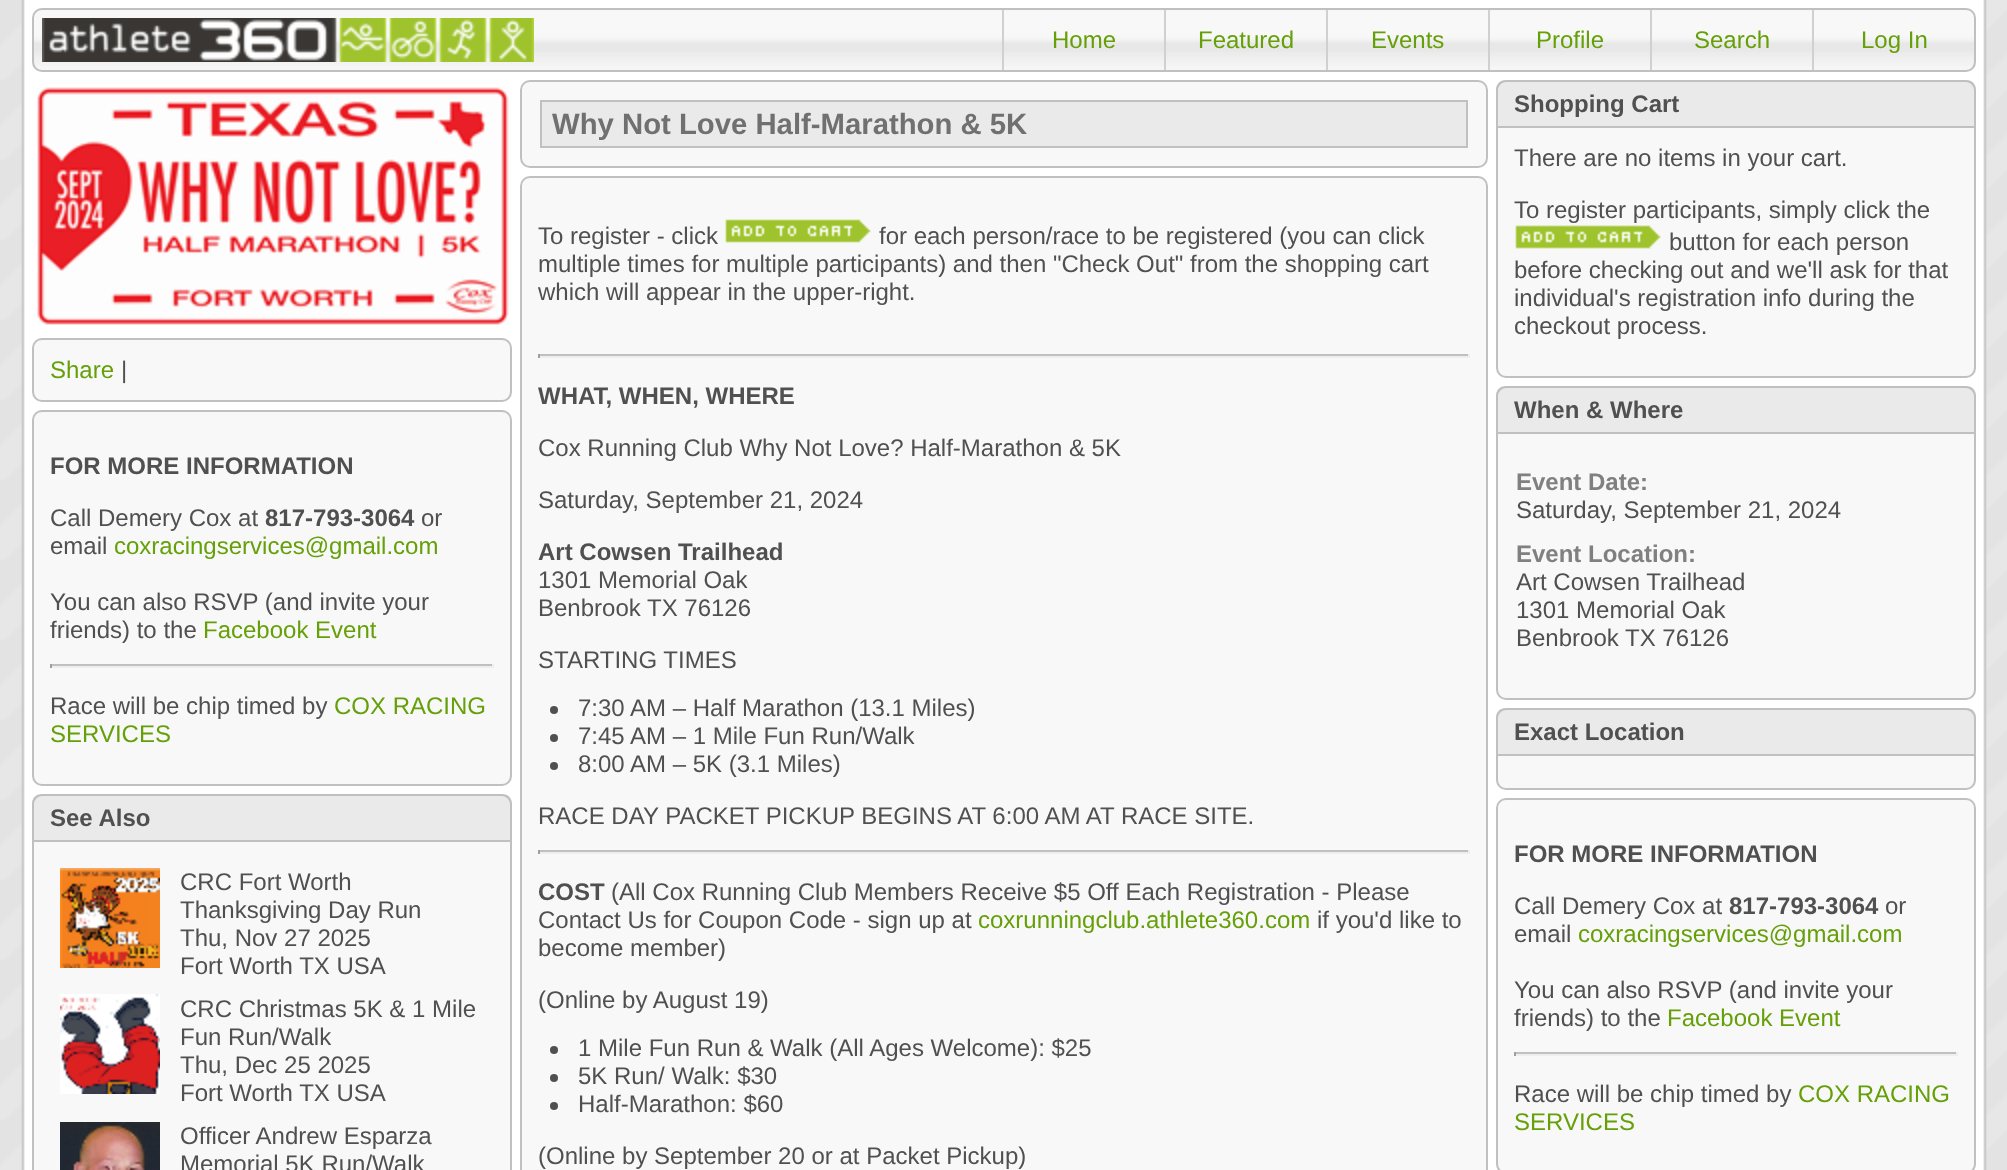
<!DOCTYPE html>
<meta charset="utf-8">
<style>body { margin: 0 } canvas { display: block }</style>
<canvas id="canvas" width="2007" height="1170"></canvas>
<script type="module">
  const canvas = document.getElementById("canvas");
  const ctx = canvas.getContext("2d");
  ctx.miterLimit = 4;
  ctx.fontKerning = "normal";
  async function loadImage(src) {
    const img = new Image();
    img.src = src;
    await img.decode();
    return img;
  }

  ctx.fillStyle = "#ffffff";
  ctx.fillRect(0, 0, 2007, 1170);
  ctx.drawImage(await loadImage("img1.png"), 0, 0, 2007, 1170);
  ctx.drawImage(await loadImage("img2.png"), 32, 8, 1944, 64);
  ctx.beginPath();
  ctx.roundRect(33, 9, 1942, 62, 9);
  ctx.strokeStyle = "#c0c0c0";
  ctx.lineWidth = 2;
  ctx.stroke();
  ctx.drawImage(await loadImage("img3.png"), 42, 18, 492, 44);
  ctx.fillStyle = "#d0d0d0";
  ctx.fillRect(1002, 10, 2, 60);
  ctx.font = "24px Liberation Sans";
  ctx.fillStyle = "#65a008";
  ctx.fillText("Home", 1052, 48);
  ctx.fillStyle = "#d0d0d0";
  ctx.fillRect(1164, 10, 2, 60);
  ctx.fillStyle = "#65a008";
  ctx.fillText("Featured", 1198, 48);
  ctx.fillStyle = "#d0d0d0";
  ctx.fillRect(1326, 10, 2, 60);
  ctx.fillStyle = "#65a008";
  ctx.fillText("Events", 1371, 48);
  ctx.fillStyle = "#d0d0d0";
  ctx.fillRect(1488, 10, 2, 60);
  ctx.fillStyle = "#65a008";
  ctx.fillText("Profile", 1536, 48);
  ctx.fillStyle = "#d0d0d0";
  ctx.fillRect(1650, 10, 2, 60);
  ctx.fillStyle = "#65a008";
  ctx.fillText("Search", 1694, 48);
  ctx.fillStyle = "#d0d0d0";
  ctx.fillRect(1812, 10, 2, 60);
  ctx.fillStyle = "#65a008";
  ctx.fillText("Log In", 1861, 48);
  ctx.drawImage(await loadImage("img4.png"), 37, 87, 472, 238);
  ctx.fillStyle = "#f8f8f8";
  ctx.beginPath();
  ctx.roundRect(33, 339, 478, 62, 9);
  ctx.fill();
  ctx.stroke();
  ctx.fillStyle = "#65a008";
  ctx.fillText("Share", 50, 378);
  ctx.fillStyle = "#505050";
  ctx.fillText("|", 121, 378);
  ctx.fillStyle = "#f8f8f8";
  ctx.beginPath();
  ctx.roundRect(33, 411, 478, 374, 9);
  ctx.fill();
  ctx.stroke();
  ctx.font = "bold 24px Liberation Sans";
  ctx.fillStyle = "#505050";
  ctx.fillText("FOR MORE INFORMATION", 50, 474);
  ctx.font = "24px Liberation Sans";
  ctx.fillText("Call Demery Cox at", 50, 526);
  ctx.font = "bold 24px Liberation Sans";
  ctx.fillText("817-793-3064", 265, 526);
  ctx.font = "24px Liberation Sans";
  ctx.fillText("or", 421, 526);
  ctx.fillText("email", 50, 554);
  ctx.fillStyle = "#65a008";
  ctx.fillText("coxracingservices@gmail.com", 114, 554);
  ctx.fillStyle = "#505050";
  ctx.fillText("You can also RSVP (and invite your", 50, 610);
  ctx.fillText("friends) to the", 50, 638);
  ctx.fillStyle = "#65a008";
  ctx.fillText("Facebook Event", 203, 638);
  ctx.fillStyle = "#c0c0c0";
  ctx.fillRect(50, 664, 444, 2);
  ctx.fillStyle = "#eeeeee";
  ctx.fillRect(492, 664, 2, 4);
  ctx.fillRect(50, 666, 444, 2);
  ctx.fillStyle = "#9f9f9f";
  ctx.fillRect(50, 664, 2, 4);
  ctx.fillStyle = "#505050";
  ctx.fillText("Race will be chip timed by", 50, 714);
  ctx.fillStyle = "#65a008";
  ctx.fillText("COX RACING", 334, 714);
  ctx.fillText("SERVICES", 50, 742);
  ctx.fillStyle = "#eaeaea";
  ctx.beginPath();
  ctx.roundRect(32, 794, 480, 46, [10, 10, 0, 0]);
  ctx.fill();
  ctx.fillStyle = "#c0c0c0";
  ctx.beginPath();
  ctx.moveTo(42, 794);
  ctx.lineTo(502, 794);
  ctx.bezierCurveTo(508, 794, 512, 798, 512, 804);
  ctx.lineTo(512, 840);
  ctx.lineTo(32, 840);
  ctx.lineTo(32, 804);
  ctx.bezierCurveTo(32, 798, 36, 794, 42, 794);
  ctx.closePath();
  ctx.moveTo(42, 796);
  ctx.lineTo(502, 796);
  ctx.bezierCurveTo(506, 796, 510, 800, 510, 804);
  ctx.lineTo(510, 840);
  ctx.lineTo(34, 840);
  ctx.lineTo(34, 804);
  ctx.bezierCurveTo(34, 800, 38, 796, 42, 796);
  ctx.closePath();
  ctx.fill("evenodd");
  ctx.font = "bold 24px Liberation Sans";
  ctx.fillStyle = "#505050";
  ctx.fillText("See Also", 50, 826);
  ctx.fillStyle = "#f8f8f8";
  ctx.beginPath();
  ctx.rect(33, 841, 478, 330);
  ctx.fill();
  ctx.stroke();
  ctx.drawImage(await loadImage("img5.png"), 60, 868, 100, 100);
  ctx.font = "24px Liberation Sans";
  ctx.fillStyle = "#505050";
  ctx.fillText("CRC Fort Worth", 180, 890);
  ctx.fillText("Thanksgiving Day Run", 180, 918);
  ctx.fillText("Thu, Nov 27 2025", 180, 946);
  ctx.fillText("Fort Worth TX USA", 180, 974);
  ctx.drawImage(await loadImage("img6.png"), 60, 994, 100, 100);
  ctx.fillText("CRC Christmas 5K & 1 Mile", 180, 1017);
  ctx.fillText("Fun Run/Walk", 180, 1045);
  ctx.fillText("Thu, Dec 25 2025", 180, 1073);
  ctx.fillText("Fort Worth TX USA", 180, 1101);
  ctx.drawImage(await loadImage("img7.png"), 60, 1122, 100, 48);
  ctx.fillText("Officer Andrew Esparza", 180, 1144);
  ctx.fillText("Memorial 5K Run/Walk", 180, 1172);
  ctx.fillStyle = "#f8f8f8";
  ctx.beginPath();
  ctx.roundRect(521, 81, 966, 86, 9);
  ctx.fill();
  ctx.stroke();
  ctx.fillStyle = "#eaeaea";
  ctx.beginPath();
  ctx.rect(541, 101, 926, 46);
  ctx.fill();
  ctx.stroke();
  ctx.font = "bold 29.3px Liberation Sans";
  ctx.fillStyle = "#707070";
  ctx.fillText("Why Not Love Half-Marathon & 5K", 552, 134);
  ctx.fillStyle = "#f8f8f8";
  ctx.beginPath();
  ctx.roundRect(521, 177, 966, 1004, 9);
  ctx.fill();
  ctx.stroke();
  ctx.font = "24px Liberation Sans";
  ctx.fillStyle = "#505050";
  ctx.fillText("To register - click", 538, 244);
  ctx.drawImage(await loadImage("img8.png"), 725, 219, 146, 24);
  ctx.fillText("for each person/race to be registered (you can click", 879, 244);
  ctx.fillText("multiple times for multiple participants) and then \"Check Out\" from the shopping cart", 538, 272);
  ctx.fillText("which will appear in the upper-right.", 538, 300);
  ctx.fillStyle = "#c0c0c0";
  ctx.fillRect(538, 354, 932, 2);
  ctx.fillStyle = "#eeeeee";
  ctx.fillRect(1468, 354, 2, 4);
  ctx.fillRect(538, 356, 932, 2);
  ctx.fillStyle = "#9f9f9f";
  ctx.fillRect(538, 354, 2, 4);
  ctx.font = "bold 24px Liberation Sans";
  ctx.fillStyle = "#505050";
  ctx.fillText("WHAT, WHEN, WHERE", 538, 404);
  ctx.font = "24px Liberation Sans";
  ctx.fillText("Cox Running Club Why Not Love? Half-Marathon & 5K", 538, 456);
  ctx.fillText("Saturday, September 21, 2024", 538, 508);
  ctx.font = "bold 24px Liberation Sans";
  ctx.fillText("Art Cowsen Trailhead", 538, 560);
  ctx.font = "24px Liberation Sans";
  ctx.fillText("1301 Memorial Oak", 538, 588);
  ctx.fillText("Benbrook TX 76126", 538, 616);
  ctx.fillText("STARTING TIMES", 538, 668);
  ctx.beginPath();
  ctx.arc(554, 710, 4, 0, Math.PI * 2);
  ctx.fill();
  ctx.fillText("7:30 AM – Half Marathon (13.1 Miles)", 578, 716);
  ctx.beginPath();
  ctx.arc(554, 738, 4, 0, Math.PI * 2);
  ctx.fill();
  ctx.fillText("7:45 AM – 1 Mile Fun Run/Walk", 578, 744);
  ctx.beginPath();
  ctx.arc(554, 766, 4, 0, Math.PI * 2);
  ctx.fill();
  ctx.fillText("8:00 AM – 5K (3.1 Miles)", 578, 772);
  ctx.fillText("RACE DAY PACKET PICKUP BEGINS AT 6:00 AM AT RACE SITE.", 538, 824);
  ctx.fillStyle = "#c0c0c0";
  ctx.fillRect(538, 850, 932, 2);
  ctx.fillStyle = "#eeeeee";
  ctx.fillRect(1468, 850, 2, 4);
  ctx.fillRect(538, 852, 932, 2);
  ctx.fillStyle = "#9f9f9f";
  ctx.fillRect(538, 850, 2, 4);
  ctx.font = "bold 24px Liberation Sans";
  ctx.fillStyle = "#505050";
  ctx.fillText("COST", 538, 900);
  ctx.font = "24px Liberation Sans";
  ctx.fillText("(All Cox Running Club Members Receive $5 Off Each Registration - Please", 611, 900);
  ctx.fillText("Contact Us for Coupon Code - sign up at", 538, 928);
  ctx.fillStyle = "#65a008";
  ctx.fillText("coxrunningclub.athlete360.com", 978, 928);
  ctx.fillStyle = "#505050";
  ctx.fillText("if you'd like to", 1317, 928);
  ctx.fillText("become member)", 538, 956);
  ctx.fillText("(Online by August 19)", 538, 1008);
  ctx.beginPath();
  ctx.arc(554, 1050, 4, 0, Math.PI * 2);
  ctx.fill();
  ctx.fillText("1 Mile Fun Run & Walk (All Ages Welcome): $25", 578, 1056);
  ctx.beginPath();
  ctx.arc(554, 1078, 4, 0, Math.PI * 2);
  ctx.fill();
  ctx.fillText("5K Run/ Walk: $30", 578, 1084);
  ctx.beginPath();
  ctx.arc(554, 1106, 4, 0, Math.PI * 2);
  ctx.fill();
  ctx.fillText("Half-Marathon: $60", 578, 1112);
  ctx.fillText("(Online by September 20 or at Packet Pickup)", 538, 1164);
  ctx.fillStyle = "#eaeaea";
  ctx.beginPath();
  ctx.roundRect(1496, 80, 480, 46, [10, 10, 0, 0]);
  ctx.fill();
  ctx.fillStyle = "#c0c0c0";
  ctx.beginPath();
  ctx.moveTo(1506, 80);
  ctx.lineTo(1966, 80);
  ctx.bezierCurveTo(1972, 80, 1976, 84, 1976, 90);
  ctx.lineTo(1976, 126);
  ctx.lineTo(1496, 126);
  ctx.lineTo(1496, 90);
  ctx.bezierCurveTo(1496, 84, 1500, 80, 1506, 80);
  ctx.closePath();
  ctx.moveTo(1506, 82);
  ctx.lineTo(1966, 82);
  ctx.bezierCurveTo(1970, 82, 1974, 86, 1974, 90);
  ctx.lineTo(1974, 126);
  ctx.lineTo(1498, 126);
  ctx.lineTo(1498, 90);
  ctx.bezierCurveTo(1498, 86, 1502, 82, 1506, 82);
  ctx.closePath();
  ctx.fill("evenodd");
  ctx.font = "bold 24px Liberation Sans";
  ctx.fillStyle = "#505050";
  ctx.fillText("Shopping Cart", 1514, 112);
  ctx.fillStyle = "#f8f8f8";
  ctx.beginPath();
  ctx.roundRect(1497, 127, 478, 250, [0, 0, 9, 9]);
  ctx.fill();
  ctx.stroke();
  ctx.font = "24px Liberation Sans";
  ctx.fillStyle = "#505050";
  ctx.fillText("There are no items in your cart.", 1514, 166);
  ctx.fillText("To register participants, simply click the", 1514, 218);
  ctx.drawImage(await loadImage("img8.png"), 1515, 225, 146, 24);
  ctx.fillText("button for each person", 1669, 250);
  ctx.fillText("before checking out and we'll ask for that", 1514, 278);
  ctx.fillText("individual's registration info during the", 1514, 306);
  ctx.fillText("checkout process.", 1514, 334);
  ctx.fillStyle = "#eaeaea";
  ctx.beginPath();
  ctx.roundRect(1496, 386, 480, 46, [10, 10, 0, 0]);
  ctx.fill();
  ctx.fillStyle = "#c0c0c0";
  ctx.beginPath();
  ctx.moveTo(1506, 386);
  ctx.lineTo(1966, 386);
  ctx.bezierCurveTo(1972, 386, 1976, 390, 1976, 396);
  ctx.lineTo(1976, 432);
  ctx.lineTo(1496, 432);
  ctx.lineTo(1496, 396);
  ctx.bezierCurveTo(1496, 390, 1500, 386, 1506, 386);
  ctx.closePath();
  ctx.moveTo(1506, 388);
  ctx.lineTo(1966, 388);
  ctx.bezierCurveTo(1970, 388, 1974, 392, 1974, 396);
  ctx.lineTo(1974, 432);
  ctx.lineTo(1498, 432);
  ctx.lineTo(1498, 396);
  ctx.bezierCurveTo(1498, 392, 1502, 388, 1506, 388);
  ctx.closePath();
  ctx.fill("evenodd");
  ctx.font = "bold 24px Liberation Sans";
  ctx.fillStyle = "#505050";
  ctx.fillText("When & Where", 1514, 418);
  ctx.fillStyle = "#f8f8f8";
  ctx.beginPath();
  ctx.roundRect(1497, 433, 478, 266, [0, 0, 9, 9]);
  ctx.fill();
  ctx.stroke();
  ctx.fillStyle = "#808080";
  ctx.fillText("Event Date:", 1516, 490);
  ctx.font = "24px Liberation Sans";
  ctx.fillStyle = "#505050";
  ctx.fillText("Saturday, September 21, 2024", 1516, 518);
  ctx.font = "bold 24px Liberation Sans";
  ctx.fillStyle = "#808080";
  ctx.fillText("Event Location:", 1516, 562);
  ctx.font = "24px Liberation Sans";
  ctx.fillStyle = "#505050";
  ctx.fillText("Art Cowsen Trailhead", 1516, 590);
  ctx.fillText("1301 Memorial Oak", 1516, 618);
  ctx.fillText("Benbrook TX 76126", 1516, 646);
  ctx.fillStyle = "#eaeaea";
  ctx.beginPath();
  ctx.roundRect(1496, 708, 480, 46, [10, 10, 0, 0]);
  ctx.fill();
  ctx.fillStyle = "#c0c0c0";
  ctx.beginPath();
  ctx.moveTo(1506, 708);
  ctx.lineTo(1966, 708);
  ctx.bezierCurveTo(1972, 708, 1976, 712, 1976, 718);
  ctx.lineTo(1976, 754);
  ctx.lineTo(1496, 754);
  ctx.lineTo(1496, 718);
  ctx.bezierCurveTo(1496, 712, 1500, 708, 1506, 708);
  ctx.closePath();
  ctx.moveTo(1506, 710);
  ctx.lineTo(1966, 710);
  ctx.bezierCurveTo(1970, 710, 1974, 714, 1974, 718);
  ctx.lineTo(1974, 754);
  ctx.lineTo(1498, 754);
  ctx.lineTo(1498, 718);
  ctx.bezierCurveTo(1498, 714, 1502, 710, 1506, 710);
  ctx.closePath();
  ctx.fill("evenodd");
  ctx.font = "bold 24px Liberation Sans";
  ctx.fillStyle = "#505050";
  ctx.fillText("Exact Location", 1514, 740);
  ctx.fillStyle = "#f8f8f8";
  ctx.beginPath();
  ctx.roundRect(1497, 755, 478, 34, [0, 0, 9, 9]);
  ctx.fill();
  ctx.stroke();
  ctx.beginPath();
  ctx.roundRect(1497, 799, 478, 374, 9);
  ctx.fill();
  ctx.stroke();
  ctx.fillStyle = "#505050";
  ctx.fillText("FOR MORE INFORMATION", 1514, 862);
  ctx.font = "24px Liberation Sans";
  ctx.fillText("Call Demery Cox at", 1514, 914);
  ctx.font = "bold 24px Liberation Sans";
  ctx.fillText("817-793-3064", 1729, 914);
  ctx.font = "24px Liberation Sans";
  ctx.fillText("or", 1885, 914);
  ctx.fillText("email", 1514, 942);
  ctx.fillStyle = "#65a008";
  ctx.fillText("coxracingservices@gmail.com", 1578, 942);
  ctx.fillStyle = "#505050";
  ctx.fillText("You can also RSVP (and invite your", 1514, 998);
  ctx.fillText("friends) to the", 1514, 1026);
  ctx.fillStyle = "#65a008";
  ctx.fillText("Facebook Event", 1667, 1026);
  ctx.fillStyle = "#c0c0c0";
  ctx.fillRect(1514, 1052, 444, 2);
  ctx.fillStyle = "#eeeeee";
  ctx.fillRect(1956, 1052, 2, 4);
  ctx.fillRect(1514, 1054, 444, 2);
  ctx.fillStyle = "#9f9f9f";
  ctx.fillRect(1514, 1052, 2, 4);
  ctx.fillStyle = "#505050";
  ctx.fillText("Race will be chip timed by", 1514, 1102);
  ctx.fillStyle = "#65a008";
  ctx.fillText("COX RACING", 1798, 1102);
  ctx.fillText("SERVICES", 1514, 1130);
</script>
